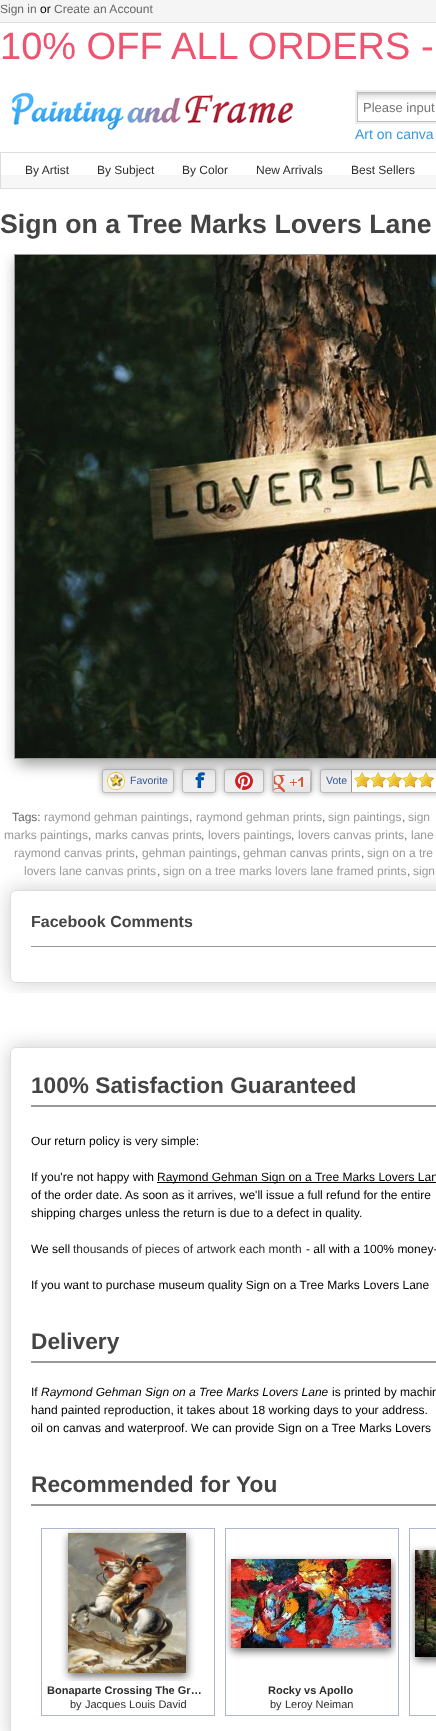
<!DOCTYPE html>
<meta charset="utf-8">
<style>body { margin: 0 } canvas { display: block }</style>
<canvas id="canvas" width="436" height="1731"></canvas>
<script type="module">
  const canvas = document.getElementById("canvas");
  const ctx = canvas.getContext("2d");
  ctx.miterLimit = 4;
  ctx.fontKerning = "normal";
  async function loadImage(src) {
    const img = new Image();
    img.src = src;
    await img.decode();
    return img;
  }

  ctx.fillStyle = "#ffffff";
  ctx.fillRect(0, 0, 436, 1731);
  ctx.fillStyle = "#f5f5f5";
  ctx.fillRect(0, 0, 436, 22);
  ctx.fillStyle = "#dcdcdc";
  ctx.fillRect(0, 22, 436, 1);
  ctx.font = "12px Liberation Sans";
  ctx.fillStyle = "#666666";
  ctx.fillText("Sign in", 0, 13);
  ctx.fillStyle = "#000000";
  ctx.fillText("or", 40, 13);
  ctx.fillStyle = "#666666";
  ctx.fillText("Create an Account", 54, 13);
  ctx.font = "38px Liberation Sans";
  ctx.fillStyle = "#ee536f";
  ctx.fillText("10% OFF ALL ORDERS -", 0, 59);
  ctx.drawImage(await loadImage("img1.png"), 11, 92, 282, 38);
  ctx.strokeStyle = "#eeeeee";
  ctx.lineWidth = 2;
  ctx.strokeRect(356, 91, 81, 32);
  ctx.drawImage(await loadImage("img2.png"), 358, 93, 78, 7);
  ctx.fillStyle = "#babebf";
  ctx.fillRect(357, 92, 79, 1);
  ctx.fillRect(357, 121, 79, 1);
  ctx.fillRect(357, 92, 1, 30);
  ctx.font = "13px Liberation Sans";
  ctx.fillStyle = "#757575";
  ctx.fillText("Please input", 363, 112);
  ctx.font = "14px Liberation Sans";
  ctx.fillStyle = "#339be1";
  ctx.fillText("Art on canva", 355, 139);
  ctx.fillStyle = "#f7f7f7";
  ctx.fillRect(1, 175, 435, 13);
  ctx.strokeStyle = "#dddddd";
  ctx.lineWidth = 1;
  ctx.strokeRect(0.5, 152.5, 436, 36);
  ctx.font = "12px Liberation Sans";
  ctx.fillStyle = "#2d2d2d";
  ctx.fillText("By Artist", 25, 174);
  ctx.fillText("By Subject", 97, 174);
  ctx.fillText("By Color", 182, 174);
  ctx.fillText("New Arrivals", 256, 174);
  ctx.fillText("Best Sellers", 351, 174);
  ctx.font = "bold 26.7px Liberation Sans";
  ctx.fillStyle = "#444444";
  ctx.fillText("Sign on a Tree Marks Lovers Lane", 0, 233);
  ctx.fillStyle = "#aaaaaa";
  ctx.filter = "blur(3px)";
  ctx.beginPath();
  ctx.roundRect(102, 769, 72, 24, 3);
  ctx.fill();
  ctx.filter = "none";
  ctx.fillStyle = "#eeeeee";
  ctx.beginPath();
  ctx.roundRect(102.5, 769.5, 71, 23, 2.5);
  ctx.fill();
  ctx.strokeStyle = "#bbbbbb";
  ctx.stroke();
  ctx.drawImage(await loadImage("img4.png"), 107, 772, 18, 18);
  ctx.fillStyle = "#aaaaaa";
  ctx.filter = "blur(3px)";
  ctx.beginPath();
  ctx.roundRect(182, 769, 34, 24, 3);
  ctx.fill();
  ctx.filter = "none";
  ctx.fillStyle = "#eeeeee";
  ctx.beginPath();
  ctx.roundRect(182.5, 769.5, 33, 23, 2.5);
  ctx.fill();
  ctx.stroke();
  ctx.drawImage(await loadImage("img5.png"), 195, 772, 10, 16);
  ctx.fillStyle = "#aaaaaa";
  ctx.filter = "blur(3px)";
  ctx.beginPath();
  ctx.roundRect(224, 769, 40, 24, 3);
  ctx.fill();
  ctx.filter = "none";
  ctx.fillStyle = "#eeeeee";
  ctx.beginPath();
  ctx.roundRect(224.5, 769.5, 39, 23, 2.5);
  ctx.fill();
  ctx.stroke();
  ctx.drawImage(await loadImage("img6.png"), 235, 772, 18, 18);
  ctx.fillStyle = "#aaaaaa";
  ctx.filter = "blur(3px)";
  ctx.beginPath();
  ctx.roundRect(272, 769, 40, 24, 3);
  ctx.fill();
  ctx.filter = "none";
  ctx.beginPath();
  ctx.roundRect(272.5, 769.5, 39, 23, 2.5);
  ctx.stroke();
  ctx.drawImage(await loadImage("img7.png"), 273, 770, 38, 22);
  ctx.filter = "blur(3px)";
  ctx.beginPath();
  ctx.roundRect(320, 769, 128, 24, 3);
  ctx.fill();
  ctx.filter = "none";
  ctx.fillStyle = "#eeeeee";
  ctx.beginPath();
  ctx.roundRect(320.5, 769.5, 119, 23, 2.5);
  ctx.fill();
  ctx.stroke();
  ctx.fillStyle = "#ffffff";
  ctx.fillRect(352, 770, 84, 22);
  ctx.fillStyle = "#999999";
  ctx.fillRect(351, 770, 1, 22);
  ctx.drawImage(await loadImage("img8.png"), 354, 772, 16, 16);
  ctx.drawImage(await loadImage("img8.png"), 370, 772, 16, 16);
  ctx.drawImage(await loadImage("img8.png"), 386, 772, 16, 16);
  ctx.drawImage(await loadImage("img8.png"), 402, 772, 16, 16);
  ctx.drawImage(await loadImage("img8.png"), 418, 772, 16, 16);
  ctx.save();
  ctx.beginPath();
  ctx.rect(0, 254, 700, 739);
  ctx.clip();
  ctx.filter = "blur(7.5px)";
  ctx.beginPath();
  ctx.rect(17, 259, 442, 505);
  ctx.fill();
  ctx.filter = "none";
  ctx.restore();
  ctx.strokeStyle = "#999999";
  ctx.strokeRect(14.5, 254.5, 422, 504);
  ctx.drawImage(await loadImage("img3.png"), 15, 255, 421, 503);
  ctx.font = "10.5px Liberation Sans";
  ctx.fillStyle = "#335599";
  ctx.fillText("Favorite", 130, 784);
  ctx.fillText("Vote", 326, 784);
  ctx.font = "12px Liberation Sans";
  ctx.fillStyle = "#666666";
  ctx.fillText("Tags:", 12, 821);
  ctx.fillStyle = "#999999";
  ctx.fillText("raymond gehman paintings", 44, 821);
  ctx.fillStyle = "#666666";
  ctx.fillText(",", 189, 821);
  ctx.fillStyle = "#999999";
  ctx.fillText("raymond gehman prints", 196, 821);
  ctx.fillStyle = "#666666";
  ctx.fillText(",", 322, 821);
  ctx.fillStyle = "#999999";
  ctx.fillText("sign paintings", 328, 821);
  ctx.fillStyle = "#666666";
  ctx.fillText(",", 402, 821);
  ctx.fillStyle = "#999999";
  ctx.fillText("sign", 408, 821);
  ctx.fillText("marks paintings", 4, 839);
  ctx.fillStyle = "#666666";
  ctx.fillText(",", 88, 839);
  ctx.fillStyle = "#999999";
  ctx.fillText("marks canvas prints", 95, 839);
  ctx.fillStyle = "#666666";
  ctx.fillText(",", 201, 839);
  ctx.fillStyle = "#999999";
  ctx.fillText("lovers paintings", 208, 839);
  ctx.fillStyle = "#666666";
  ctx.fillText(",", 291, 839);
  ctx.fillStyle = "#999999";
  ctx.fillText("lovers canvas prints", 298, 839);
  ctx.fillStyle = "#666666";
  ctx.fillText(",", 404, 839);
  ctx.fillStyle = "#999999";
  ctx.fillText("lane", 411, 839);
  ctx.fillText("raymond canvas prints", 14, 857);
  ctx.fillStyle = "#666666";
  ctx.fillText(",", 135, 857);
  ctx.fillStyle = "#999999";
  ctx.fillText("gehman paintings", 142, 857);
  ctx.fillStyle = "#666666";
  ctx.fillText(",", 237, 857);
  ctx.fillStyle = "#999999";
  ctx.fillText("gehman canvas prints", 243, 857);
  ctx.fillStyle = "#666666";
  ctx.fillText(",", 361, 857);
  ctx.fillStyle = "#999999";
  ctx.fillText("sign on a tre", 367, 857);
  ctx.fillText("lovers lane canvas prints", 24, 875);
  ctx.fillStyle = "#666666";
  ctx.fillText(",", 157, 875);
  ctx.fillStyle = "#999999";
  ctx.fillText("sign on a tree marks lovers lane framed prints", 163, 875);
  ctx.fillStyle = "#666666";
  ctx.fillText(",", 407, 875);
  ctx.fillStyle = "#999999";
  ctx.fillText("sign", 413, 875);
  ctx.save();
  ctx.beginPath();
  ctx.rect(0, 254, 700, 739);
  ctx.clip();
  ctx.beginPath();
  ctx.moveTo(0, 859);
  ctx.lineTo(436, 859);
  ctx.lineTo(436, 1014);
  ctx.lineTo(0, 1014);
  ctx.closePath();
  ctx.moveTo(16, 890);
  ctx.lineTo(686, 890);
  ctx.bezierCurveTo(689.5, 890, 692, 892.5, 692, 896);
  ctx.lineTo(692, 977);
  ctx.bezierCurveTo(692, 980.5, 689.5, 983, 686, 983);
  ctx.lineTo(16, 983);
  ctx.bezierCurveTo(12.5, 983, 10, 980.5, 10, 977);
  ctx.lineTo(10, 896);
  ctx.bezierCurveTo(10, 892.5, 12.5, 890, 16, 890);
  ctx.closePath();
  ctx.clip("evenodd");
  ctx.fillStyle = "#cccccc";
  ctx.filter = "blur(10px)";
  ctx.beginPath();
  ctx.roundRect(10, 890, 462, 93, 6);
  ctx.fill();
  ctx.filter = "none";
  ctx.restore();
  ctx.beginPath();
  ctx.roundRect(10.5, 890.5, 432, 92, 5.5);
  ctx.strokeStyle = "#dddddd";
  ctx.stroke();
  ctx.font = "bold 16px Liberation Sans";
  ctx.fillStyle = "#444444";
  ctx.fillText("Facebook Comments", 31, 927);
  ctx.fillStyle = "#999999";
  ctx.fillRect(31, 946, 405, 1);
  ctx.save();
  ctx.beginPath();
  ctx.moveTo(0, 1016);
  ctx.lineTo(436, 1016);
  ctx.lineTo(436, 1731);
  ctx.lineTo(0, 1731);
  ctx.closePath();
  ctx.moveTo(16, 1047);
  ctx.lineTo(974, 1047);
  ctx.bezierCurveTo(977.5, 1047, 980, 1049.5, 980, 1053);
  ctx.lineTo(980, 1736);
  ctx.bezierCurveTo(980, 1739.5, 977.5, 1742, 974, 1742);
  ctx.lineTo(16, 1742);
  ctx.bezierCurveTo(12.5, 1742, 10, 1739.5, 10, 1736);
  ctx.lineTo(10, 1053);
  ctx.bezierCurveTo(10, 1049.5, 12.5, 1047, 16, 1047);
  ctx.closePath();
  ctx.clip("evenodd");
  ctx.fillStyle = "#cccccc";
  ctx.filter = "blur(10px)";
  ctx.beginPath();
  ctx.roundRect(10, 1047, 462, 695, 6);
  ctx.fill();
  ctx.filter = "none";
  ctx.restore();
  ctx.beginPath();
  ctx.roundRect(10.5, 1047.5, 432, 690, 5.5);
  ctx.stroke();
  ctx.fillRect(31, 1105, 405, 2);
  ctx.font = "bold 22.7px Liberation Sans";
  ctx.fillStyle = "#444444";
  ctx.fillText("100% Satisfaction Guaranteed", 31, 1093);
  ctx.font = "12px Liberation Sans";
  ctx.fillStyle = "#000000";
  ctx.fillText("Our return policy is very simple:", 31, 1145);
  ctx.fillText("If you're not happy with", 31, 1181);
  ctx.fillRect(157, 1182, 279, 1);
  ctx.fillText("Raymond Gehman Sign on a Tree Marks Lovers Lan", 157, 1181);
  ctx.fillText("of the order date. As soon as it arrives, we'll issue a full refund for the entire", 31, 1199);
  ctx.fillText("shipping charges unless the return is due to a defect in quality.", 31, 1217);
  ctx.fillText("We sell", 31, 1253);
  ctx.fillStyle = "#2d2d2d";
  ctx.fillText("thousands of pieces of artwork each month", 73, 1253);
  ctx.fillStyle = "#000000";
  ctx.fillText("- all with a 100% money-", 306, 1253);
  ctx.fillText("If you want to purchase museum quality Sign on a Tree Marks Lovers Lane", 31, 1289);
  ctx.fillStyle = "#999999";
  ctx.fillRect(31, 1361, 405, 2);
  ctx.font = "bold 22.7px Liberation Sans";
  ctx.fillStyle = "#444444";
  ctx.fillText("Delivery", 31, 1349);
  ctx.font = "12px Liberation Sans";
  ctx.fillStyle = "#000000";
  ctx.fillText("If", 31, 1396);
  ctx.font = "italic 12px Liberation Sans";
  ctx.fillText("Raymond Gehman Sign on a Tree Marks Lovers Lane", 41, 1396);
  ctx.font = "12px Liberation Sans";
  ctx.fillText("is printed by machin", 332, 1396);
  ctx.fillText("hand painted reproduction, it takes about 18 working days to your address.", 31, 1414);
  ctx.fillText("oil on canvas and waterproof. We can provide Sign on a Tree Marks Lovers", 31, 1432);
  ctx.fillStyle = "#999999";
  ctx.fillRect(31, 1504, 405, 2);
  ctx.font = "bold 22.7px Liberation Sans";
  ctx.fillStyle = "#444444";
  ctx.fillText("Recommended for You", 31, 1492);
  ctx.strokeStyle = "#afb7cf";
  ctx.strokeRect(41.5, 1528.5, 173, 187);
  ctx.save();
  ctx.beginPath();
  ctx.rect(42, 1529, 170, 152);
  ctx.clip();
  ctx.fillStyle = "#666666";
  ctx.filter = "blur(4px)";
  ctx.beginPath();
  ctx.rect(69, 1536, 118, 140);
  ctx.fill();
  ctx.filter = "none";
  ctx.restore();
  ctx.drawImage(await loadImage("img9.png"), 68, 1533, 118, 140);
  ctx.font = "bold 11px Liberation Sans";
  ctx.fillStyle = "#2d2d2d";
  ctx.fillText("Bonaparte Crossing The Gr…", 47, 1694);
  ctx.font = "11px Liberation Sans";
  ctx.fillText("by", 70, 1708);
  ctx.fillText("Jacques Louis David", 85, 1708);
  ctx.strokeRect(225.5, 1528.5, 173, 187);
  ctx.save();
  ctx.beginPath();
  ctx.rect(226, 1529, 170, 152);
  ctx.clip();
  ctx.fillStyle = "#666666";
  ctx.filter = "blur(4px)";
  ctx.beginPath();
  ctx.rect(232, 1562, 160, 89);
  ctx.fill();
  ctx.filter = "none";
  ctx.restore();
  ctx.drawImage(await loadImage("img10.png"), 231, 1559, 160, 89);
  ctx.font = "bold 11px Liberation Sans";
  ctx.fillText("Rocky vs Apollo", 268, 1694);
  ctx.font = "11px Liberation Sans";
  ctx.fillText("by", 270, 1708);
  ctx.fillText("Leroy Neiman", 285, 1708);
  ctx.strokeRect(409.5, 1528.5, 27, 187);
  ctx.save();
  ctx.beginPath();
  ctx.rect(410, 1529, 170, 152);
  ctx.clip();
  ctx.fillStyle = "#666666";
  ctx.filter = "blur(4px)";
  ctx.beginPath();
  ctx.rect(416, 1553, 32, 107);
  ctx.fill();
  ctx.filter = "none";
  ctx.restore();
  ctx.drawImage(await loadImage("img11.png"), 415, 1550, 21, 107);
</script>
